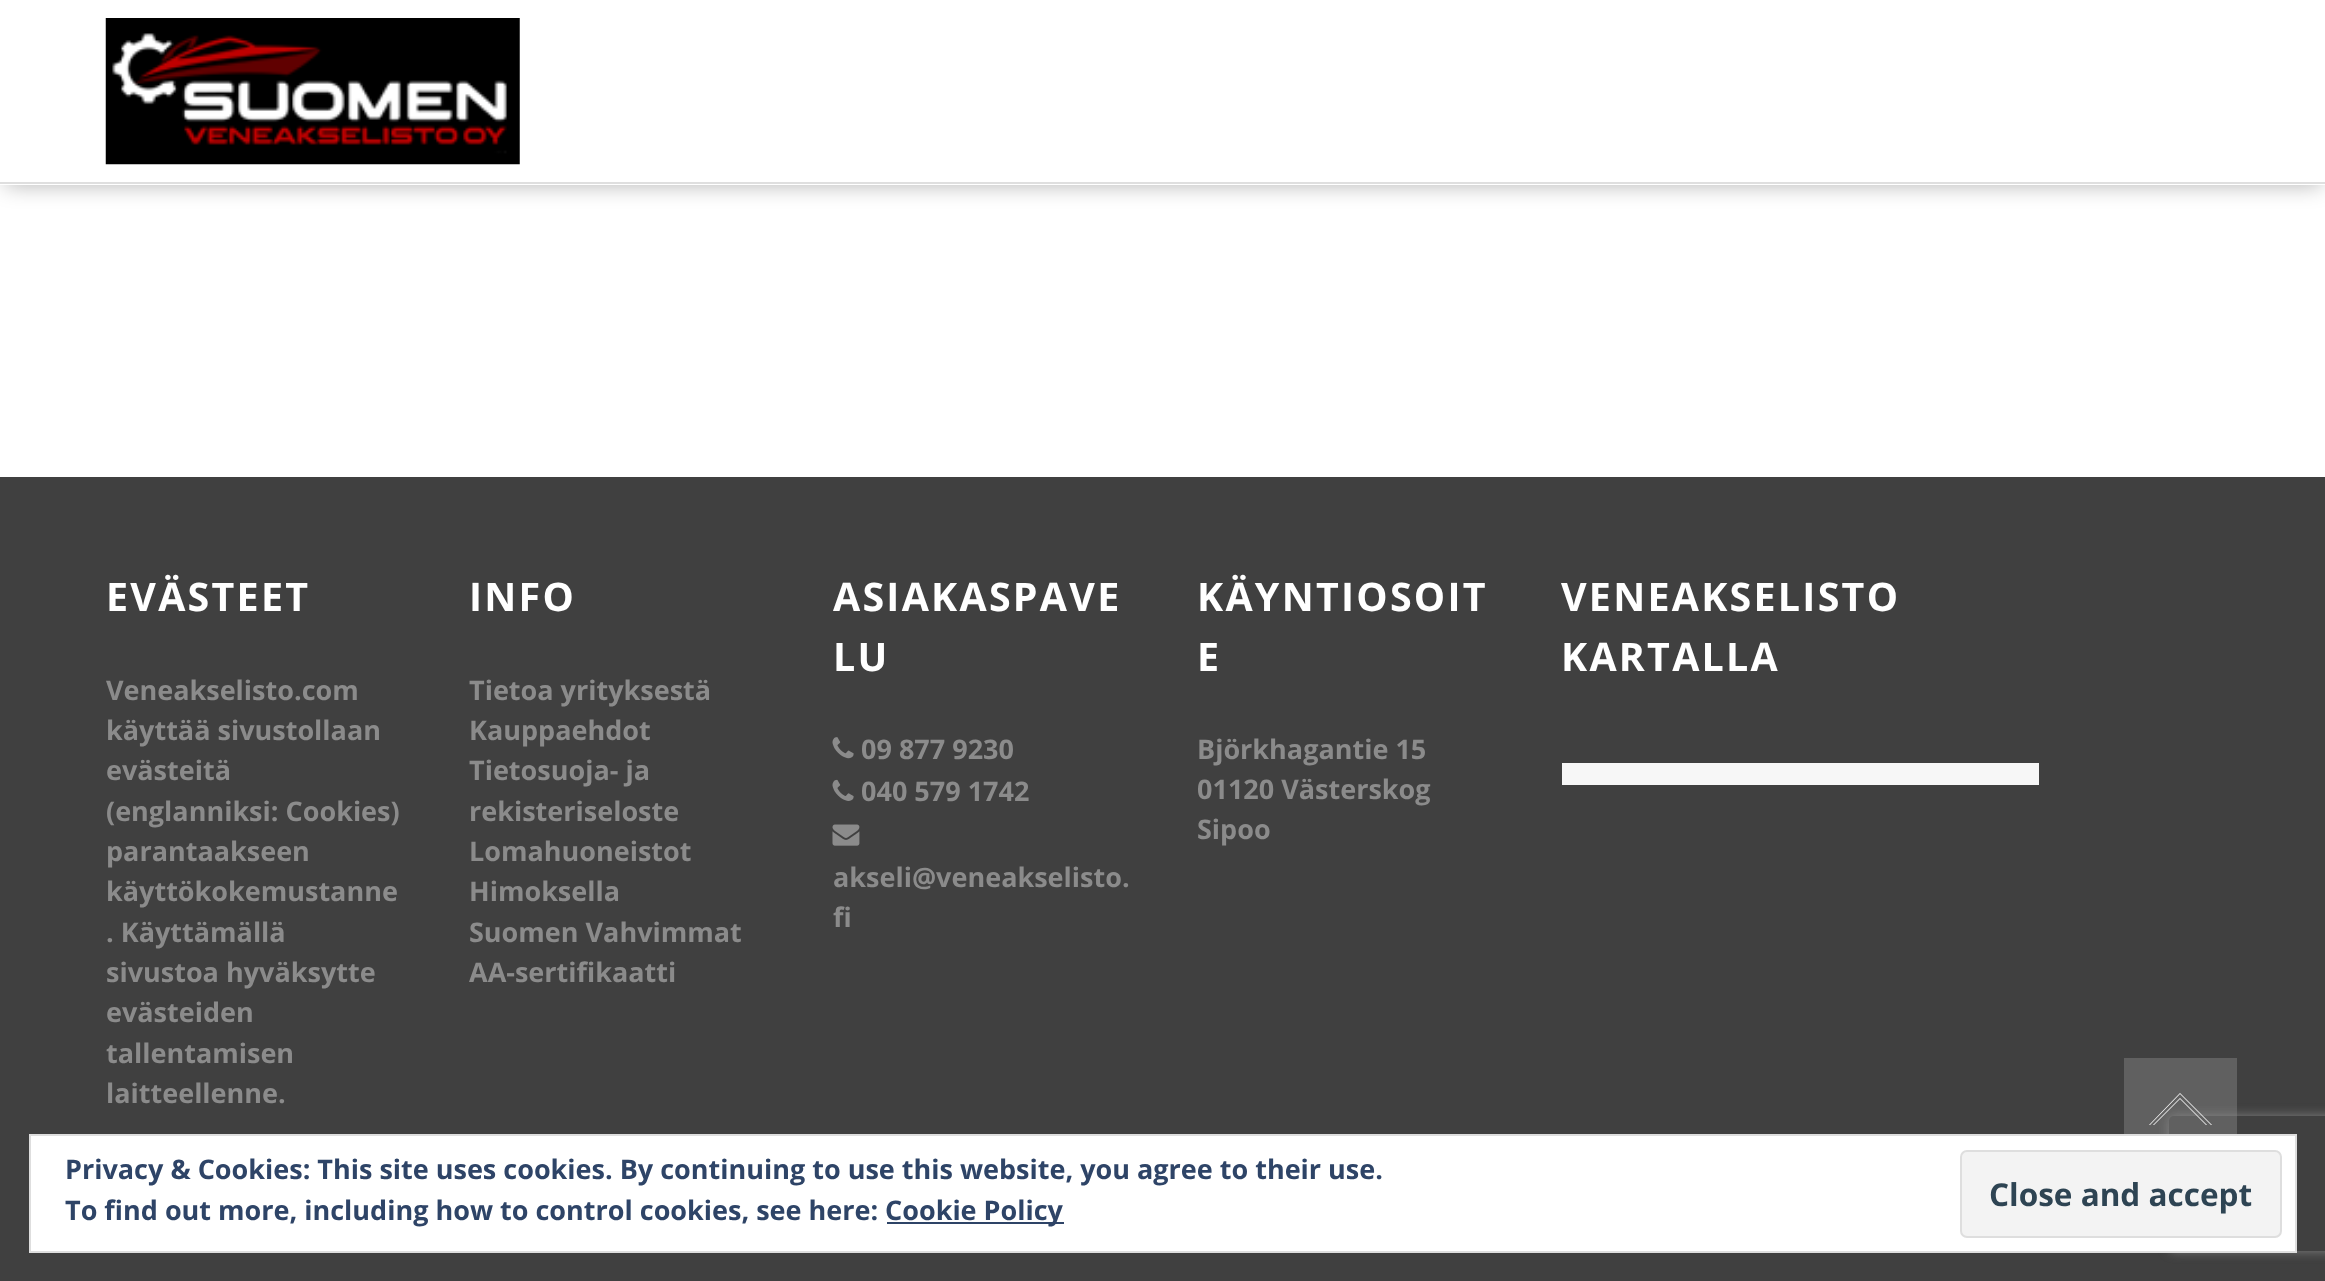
<!DOCTYPE html>
<meta charset="utf-8">
<style>body { margin: 0 } canvas { display: block }</style>
<canvas id="canvas" width="2325" height="1281"></canvas>
<script type="module">
  const canvas = document.getElementById("canvas");
  const ctx = canvas.getContext("2d");
  ctx.miterLimit = 4;
  ctx.fontKerning = "normal";
  async function loadImage(src) {
    const img = new Image();
    img.src = src;
    await img.decode();
    return img;
  }

  ctx.fillStyle = "#ffffff";
  ctx.fillRect(0, 0, 2325, 1281);
  ctx.fillStyle = "rgba(0, 0, 0, 0.3)";
  ctx.filter = "blur(11px)";
  ctx.beginPath();
  ctx.rect(5, 9, 2317, 176);
  ctx.fill();
  ctx.filter = "none";
  ctx.fillStyle = "#ffffff";
  ctx.fillRect(0, 0, 2325, 185);
  ctx.fillStyle = "#dfdfdf";
  ctx.fillRect(0, 182, 2325, 2);
  ctx.drawImage(await loadImage("img1.png"), 105, 18, 415, 147);
  ctx.fillStyle = "#404040";
  ctx.fillRect(0, 477, 2325, 804);
  ctx.letterSpacing = "2.25px";
  ctx.font = "bold 39.4px Open Sans";
  ctx.fillStyle = "#ffffff";
  ctx.fillText("EVÄSTEET", 106, 611);
  ctx.letterSpacing = "0px";
  ctx.font = "bold 27px Open Sans";
  ctx.fillStyle = "#8b8b8b";
  ctx.fillText("Veneakselisto.com", 106, 700);
  ctx.fillText("käyttää sivustollaan", 106, 740);
  ctx.fillText("evästeitä", 106, 780);
  ctx.fillText("(englanniksi: Cookies)", 106, 821);
  ctx.fillText("parantaakseen", 106, 861);
  ctx.fillText("käyttökokemustanne", 106, 901);
  ctx.fillText(". Käyttämällä", 106, 942);
  ctx.fillText("sivustoa hyväksytte", 106, 982);
  ctx.fillText("evästeiden", 106, 1022);
  ctx.fillText("tallentamisen", 106, 1063);
  ctx.fillText("laitteellenne.", 106, 1103);
  ctx.letterSpacing = "2.25px";
  ctx.font = "bold 39.4px Open Sans";
  ctx.fillStyle = "#ffffff";
  ctx.fillText("INFO", 469, 611);
  ctx.letterSpacing = "0px";
  ctx.font = "bold 27px Open Sans";
  ctx.fillStyle = "#8b8b8b";
  ctx.fillText("Tietoa yrityksestä", 469, 700);
  ctx.fillText("Kauppaehdot", 469, 740);
  ctx.fillText("Tietosuoja- ja", 469, 780);
  ctx.fillText("rekisteriseloste", 469, 821);
  ctx.fillText("Lomahuoneistot", 469, 861);
  ctx.fillText("Himoksella", 469, 901);
  ctx.fillText("Suomen Vahvimmat", 469, 942);
  ctx.fillText("AA-sertifikaatti", 469, 982);
  ctx.letterSpacing = "2.25px";
  ctx.font = "bold 39.4px Open Sans";
  ctx.fillStyle = "#ffffff";
  ctx.fillText("ASIAKASPAVE", 833, 611);
  ctx.fillText("LU", 833, 671);
  ctx.drawImage(await loadImage("img2.png"), 832, 737, 22, 22);
  ctx.letterSpacing = "0px";
  ctx.font = "bold 27px Open Sans";
  ctx.fillStyle = "#8b8b8b";
  ctx.fillText("09 877 9230", 861, 759);
  ctx.drawImage(await loadImage("img3.png"), 832, 779, 22, 22);
  ctx.fillText("040 579 1742", 861, 801);
  ctx.drawImage(await loadImage("img4.png"), 832, 824, 28, 22);
  ctx.fillText("akseli@veneakselisto.", 833, 887);
  ctx.fillText("fi", 833, 927);
  ctx.letterSpacing = "2.25px";
  ctx.font = "bold 39.4px Open Sans";
  ctx.fillStyle = "#ffffff";
  ctx.fillText("KÄYNTIOSOIT", 1197, 611);
  ctx.fillText("E", 1197, 671);
  ctx.letterSpacing = "0px";
  ctx.font = "bold 27px Open Sans";
  ctx.fillStyle = "#8b8b8b";
  ctx.fillText("Björkhagantie 15", 1197, 759);
  ctx.fillText("01120 Västerskog", 1197, 799);
  ctx.fillText("Sipoo", 1197, 839);
  ctx.letterSpacing = "2.25px";
  ctx.font = "bold 39.4px Open Sans";
  ctx.fillStyle = "#ffffff";
  ctx.fillText("VENEAKSELISTO", 1561, 611);
  ctx.fillText("KARTALLA", 1561, 671);
  ctx.fillStyle = "#f7f7f7";
  ctx.fillRect(1562, 763, 477, 22);
  ctx.save();
  ctx.beginPath();
  ctx.moveTo(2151, 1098);
  ctx.lineTo(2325, 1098);
  ctx.lineTo(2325, 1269);
  ctx.lineTo(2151, 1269);
  ctx.closePath();
  ctx.moveTo(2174, 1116);
  ctx.lineTo(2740, 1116);
  ctx.bezierCurveTo(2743, 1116, 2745, 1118, 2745, 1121);
  ctx.lineTo(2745, 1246);
  ctx.bezierCurveTo(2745, 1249, 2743, 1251, 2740, 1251);
  ctx.lineTo(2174, 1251);
  ctx.bezierCurveTo(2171, 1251, 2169, 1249, 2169, 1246);
  ctx.lineTo(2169, 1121);
  ctx.bezierCurveTo(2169, 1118, 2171, 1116, 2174, 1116);
  ctx.closePath();
  ctx.clip("evenodd");
  ctx.fillStyle = "#808080";
  ctx.filter = "blur(5.5px)";
  ctx.beginPath();
  ctx.roundRect(2169, 1116, 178, 135, 5);
  ctx.fill();
  ctx.filter = "none";
  ctx.restore();
  ctx.fillStyle = "rgba(255, 255, 255, 0.3)";
  ctx.fillRect(2124, 1058, 113, 76);
  ctx.fillStyle = "rgba(0, 0, 0, 0.2)";
  ctx.fillRect(2124, 1058, 113, 76);
  ctx.fillStyle = "#ffffff";
  ctx.beginPath();
  ctx.moveTo(2154, 1125);
  ctx.lineTo(2180, 1099);
  ctx.lineTo(2206, 1125);
  ctx.lineTo(2207, 1125);
  ctx.lineTo(2180, 1098);
  ctx.lineTo(2153, 1125);
  ctx.closePath();
  ctx.moveTo(2150, 1125);
  ctx.lineTo(2180, 1094);
  ctx.lineTo(2211, 1125);
  ctx.lineTo(2212, 1125);
  ctx.lineTo(2180, 1093);
  ctx.lineTo(2149, 1125);
  ctx.closePath();
  ctx.fill();
  ctx.beginPath();
  ctx.rect(30, 1135, 2266, 117);
  ctx.fill();
  ctx.strokeStyle = "#dedede";
  ctx.lineWidth = 2;
  ctx.stroke();
  ctx.letterSpacing = "0px";
  ctx.font = "bold 27px Open Sans";
  ctx.fillStyle = "#2e4467";
  ctx.fillText("Privacy & Cookies: This site uses cookies. By continuing to use this website, you agree to their use.", 65, 1179);
  ctx.fillText("To find out more, including how to control cookies, see here:", 65, 1220);
  ctx.fillRect(887, 1222, 177, 2);
  ctx.fillText("Cookie Policy", 885, 1220);
  ctx.fillStyle = "#f3f3f3";
  ctx.beginPath();
  ctx.roundRect(1961, 1151, 320, 86, 6);
  ctx.fill();
  ctx.stroke();
  ctx.font = "bold 31.5px Open Sans";
  ctx.fillStyle = "#2e4453";
  ctx.fillText("Close and accept", 1989, 1206);
</script>
